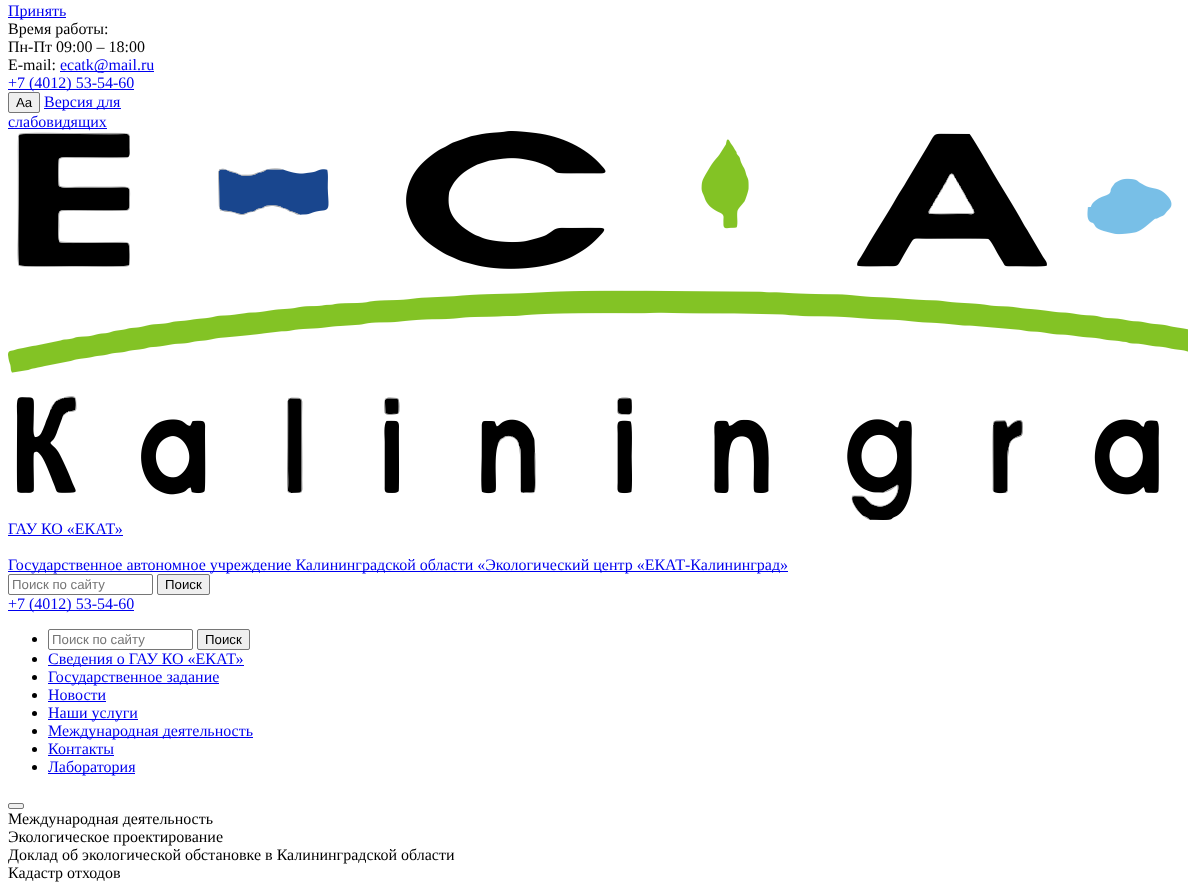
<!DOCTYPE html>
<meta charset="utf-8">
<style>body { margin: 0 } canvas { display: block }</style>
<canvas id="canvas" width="1188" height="891"></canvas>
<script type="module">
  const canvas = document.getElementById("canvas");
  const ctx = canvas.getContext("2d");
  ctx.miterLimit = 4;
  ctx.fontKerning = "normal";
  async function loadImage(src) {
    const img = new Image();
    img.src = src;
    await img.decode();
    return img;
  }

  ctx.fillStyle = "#ffffff";
  ctx.fillRect(0, 0, 1188, 891);
  ctx.fillStyle = "#0000ee";
  ctx.fillRect(8, 17, 58, 1);
  ctx.font = "16px Liberation Serif";
  ctx.fillText("Принять", 8, 16);
  ctx.fillStyle = "#000000";
  ctx.fillText("Время работы:", 8, 34);
  ctx.fillText("Пн-Пт 09:00 – 18:00", 8, 52);
  ctx.fillText("E-mail:", 8, 70);
  ctx.fillStyle = "#0000ee";
  ctx.fillRect(60, 71, 94, 1);
  ctx.fillText("ecatk@mail.ru", 60, 70);
  ctx.fillRect(8, 89, 126, 1);
  ctx.fillText("+7 (4012) 53-54-60", 8, 88);
  ctx.fillStyle = "#efefef";
  ctx.beginPath();
  ctx.roundRect(8.5, 92.5, 31, 20, 1.5);
  ctx.fill();
  ctx.strokeStyle = "#767676";
  ctx.stroke();
  ctx.font = "13.25px Liberation Sans";
  ctx.fillStyle = "#000000";
  ctx.fillText("Aa", 16, 107);
  ctx.fillStyle = "#0000ee";
  ctx.fillRect(44, 108, 77, 1);
  ctx.font = "16px Liberation Serif";
  ctx.fillText("Версия для", 44, 107);
  ctx.fillRect(8, 128, 99, 1);
  ctx.fillText("слабовидящих", 8, 127);
  ctx.drawImage(await loadImage("img1.png"), 8, 131, 1180, 389);
  ctx.fillText("ГАУ КО «ЕКАТ»", 8, 534);
  ctx.fillRect(8, 535, 115, 1);
  ctx.fillRect(8, 571, 780, 1);
  ctx.fillText("Государственное автономное учреждение Калининградской области «Экологический центр «ЕКАТ-Калининград»", 8, 570);
  ctx.beginPath();
  ctx.roundRect(8.5, 574.5, 144, 20, 1.5);
  ctx.stroke();
  ctx.font = "13.25px Liberation Sans";
  ctx.fillStyle = "#757575";
  ctx.fillText("Поиск по сайту", 12, 589);
  ctx.fillStyle = "#efefef";
  ctx.beginPath();
  ctx.roundRect(157.5, 574.5, 52, 20, 1.5);
  ctx.fill();
  ctx.stroke();
  ctx.fillStyle = "#000000";
  ctx.fillText("Поиск", 165, 589);
  ctx.fillStyle = "#0000ee";
  ctx.fillRect(8, 610, 126, 1);
  ctx.font = "16px Liberation Serif";
  ctx.fillText("+7 (4012) 53-54-60", 8, 609);
  ctx.fillStyle = "#000000";
  ctx.beginPath();
  ctx.arc(34.5, 639.5, 2.5, 0, Math.PI * 2);
  ctx.fill();
  ctx.beginPath();
  ctx.roundRect(48.5, 629.5, 144, 20, 1.5);
  ctx.stroke();
  ctx.font = "13.25px Liberation Sans";
  ctx.fillStyle = "#757575";
  ctx.fillText("Поиск по сайту", 52, 644);
  ctx.fillStyle = "#efefef";
  ctx.beginPath();
  ctx.roundRect(197.5, 629.5, 52, 20, 1.5);
  ctx.fill();
  ctx.stroke();
  ctx.fillStyle = "#000000";
  ctx.fillText("Поиск", 205, 644);
  ctx.beginPath();
  ctx.arc(34.5, 659.5, 2.5, 0, Math.PI * 2);
  ctx.fill();
  ctx.fillStyle = "#0000ee";
  ctx.fillRect(48, 665, 196, 1);
  ctx.font = "16px Liberation Serif";
  ctx.fillText("Сведения о ГАУ КО «ЕКАТ»", 48, 664);
  ctx.fillStyle = "#000000";
  ctx.beginPath();
  ctx.arc(34.5, 677.5, 2.5, 0, Math.PI * 2);
  ctx.fill();
  ctx.fillStyle = "#0000ee";
  ctx.fillRect(48, 683, 171, 1);
  ctx.fillText("Государственное задание", 48, 682);
  ctx.fillStyle = "#000000";
  ctx.beginPath();
  ctx.arc(34.5, 695.5, 2.5, 0, Math.PI * 2);
  ctx.fill();
  ctx.fillStyle = "#0000ee";
  ctx.fillText("Новости", 48, 700);
  ctx.fillRect(48, 701, 58, 1);
  ctx.fillStyle = "#000000";
  ctx.beginPath();
  ctx.arc(34.5, 713.5, 2.5, 0, Math.PI * 2);
  ctx.fill();
  ctx.fillStyle = "#0000ee";
  ctx.fillRect(48, 719, 90, 1);
  ctx.fillText("Наши услуги", 48, 718);
  ctx.fillStyle = "#000000";
  ctx.beginPath();
  ctx.arc(34.5, 731.5, 2.5, 0, Math.PI * 2);
  ctx.fill();
  ctx.fillStyle = "#0000ee";
  ctx.fillRect(48, 737, 205, 1);
  ctx.fillText("Международная деятельность", 48, 736);
  ctx.fillStyle = "#000000";
  ctx.beginPath();
  ctx.arc(34.5, 749.5, 2.5, 0, Math.PI * 2);
  ctx.fill();
  ctx.fillStyle = "#0000ee";
  ctx.fillText("Контакты", 48, 754);
  ctx.fillRect(48, 755, 66, 1);
  ctx.fillStyle = "#000000";
  ctx.beginPath();
  ctx.arc(34.5, 767.5, 2.5, 0, Math.PI * 2);
  ctx.fill();
  ctx.fillStyle = "#0000ee";
  ctx.fillRect(48, 773, 87, 1);
  ctx.fillText("Лаборатория", 48, 772);
  ctx.fillStyle = "#efefef";
  ctx.beginPath();
  ctx.roundRect(8.5, 803.5, 15, 5, 1.5);
  ctx.fill();
  ctx.stroke();
  ctx.fillStyle = "#000000";
  ctx.fillText("Международная деятельность", 8, 824);
  ctx.fillText("Экологическое проектирование", 8, 842);
  ctx.fillText("Доклад об экологической обстановке в Калининградской области", 8, 860);
  ctx.fillText("Кадастр отходов", 8, 878);
</script>
